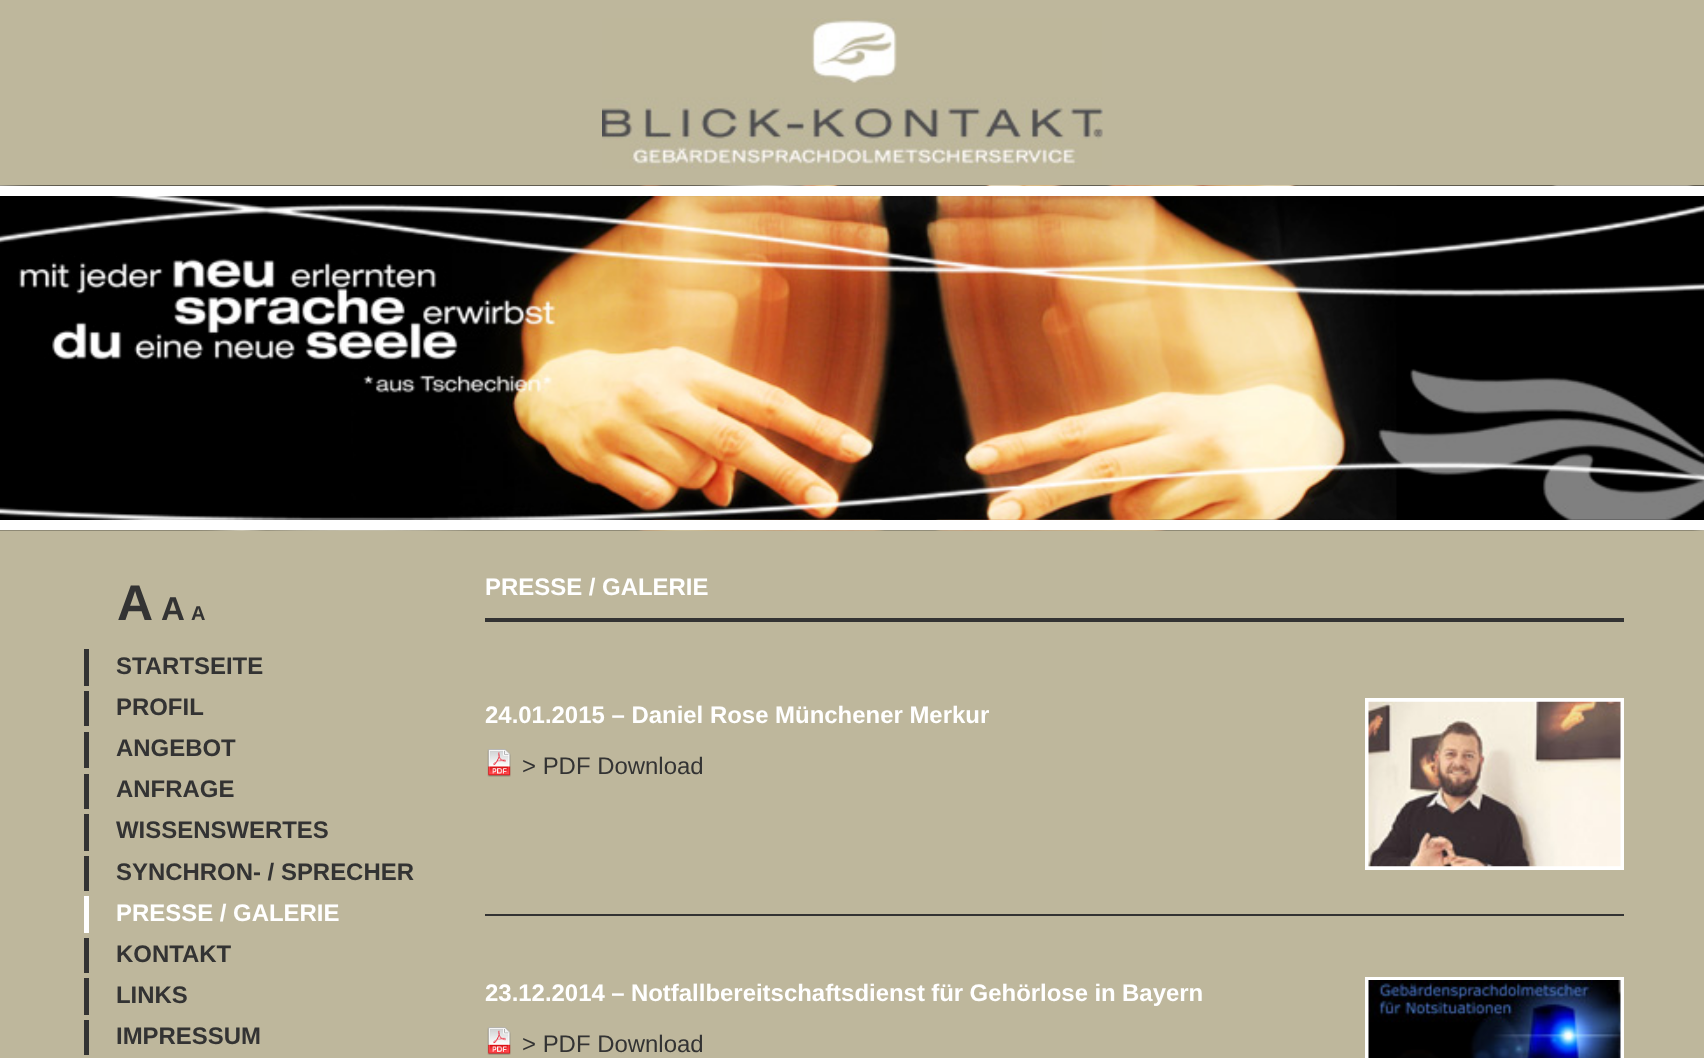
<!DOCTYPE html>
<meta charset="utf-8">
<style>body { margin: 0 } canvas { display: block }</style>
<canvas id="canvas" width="1704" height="1058"></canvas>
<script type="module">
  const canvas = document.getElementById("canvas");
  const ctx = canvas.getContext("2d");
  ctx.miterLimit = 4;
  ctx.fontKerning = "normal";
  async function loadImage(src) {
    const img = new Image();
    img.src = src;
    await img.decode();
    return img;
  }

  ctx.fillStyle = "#beb79c";
  ctx.fillRect(0, 0, 1704, 1058);
  ctx.drawImage(await loadImage("img1.png"), 602, 18, 501, 151);
  ctx.drawImage(await loadImage("img2.png"), 0, 185, 1704, 346);
  ctx.fillStyle = "#ffffff";
  ctx.fillRect(0, 186, 1704, 10);
  ctx.fillRect(0, 520, 1704, 10);
  ctx.drawImage(await loadImage("img3.png"), 0, 196, 1704, 324);
  ctx.font = "bold 50px Liberation Sans";
  ctx.fillStyle = "#333333";
  ctx.fillText("A", 117, 620);
  ctx.font = "bold 33px Liberation Sans";
  ctx.fillText("A", 161, 620);
  ctx.font = "bold 20px Liberation Sans";
  ctx.fillText("A", 191, 620);
  ctx.fillRect(84, 649, 5, 37);
  ctx.font = "bold 23.95px Liberation Sans";
  ctx.fillText("STARTSEITE", 116, 674);
  ctx.fillRect(84, 691, 5, 35);
  ctx.fillText("PROFIL", 116, 715);
  ctx.fillRect(84, 732, 5, 36);
  ctx.fillText("ANGEBOT", 116, 756);
  ctx.fillRect(84, 774, 5, 35);
  ctx.fillText("ANFRAGE", 116, 797);
  ctx.fillRect(84, 814, 5, 37);
  ctx.fillText("WISSENSWERTES", 116, 838);
  ctx.fillRect(84, 856, 5, 35);
  ctx.fillText("SYNCHRON- / SPRECHER", 116, 880);
  ctx.fillStyle = "#ffffff";
  ctx.fillRect(84, 896, 5, 37);
  ctx.fillText("PRESSE / GALERIE", 116, 921);
  ctx.fillStyle = "#333333";
  ctx.fillRect(84, 938, 5, 35);
  ctx.fillText("KONTAKT", 116, 962);
  ctx.fillRect(84, 978, 5, 37);
  ctx.fillText("LINKS", 116, 1003);
  ctx.fillRect(84, 1020, 5, 35);
  ctx.fillText("IMPRESSUM", 116, 1044);
  ctx.fillStyle = "#ffffff";
  ctx.fillText("PRESSE / GALERIE", 485, 595);
  ctx.fillStyle = "#333333";
  ctx.fillRect(485, 618, 1139, 4);
  ctx.fillRect(485, 914, 1139, 2);
  ctx.fillStyle = "#ffffff";
  ctx.fillText("24.01.2015 – Daniel Rose Münchener Merkur", 485, 723);
  ctx.strokeStyle = "#ffffff";
  ctx.lineWidth = 4;
  ctx.strokeRect(1367, 700, 255, 168);
  ctx.drawImage(await loadImage("img4.png"), 1368, 701, 253, 166);
  ctx.drawImage(await loadImage("img5.png"), 487, 749, 24, 28);
  ctx.font = "23.95px Liberation Sans";
  ctx.fillStyle = "#333333";
  ctx.fillText("> PDF Download", 522, 774);
  ctx.wordSpacing = "-0.25px";
  ctx.font = "bold 23.95px Liberation Sans";
  ctx.fillStyle = "#ffffff";
  ctx.fillText("23.12.2014 – Notfallbereitschaftsdienst für Gehörlose in Bayern", 485, 1001);
  ctx.strokeRect(1367, 979, 255, 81);
  ctx.drawImage(await loadImage("img6.png"), 1368, 980, 253, 78);
  ctx.drawImage(await loadImage("img7.png"), 487, 1027, 24, 28);
  ctx.wordSpacing = "0px";
  ctx.font = "23.95px Liberation Sans";
  ctx.fillStyle = "#333333";
  ctx.fillText("> PDF Download", 522, 1052);
</script>
